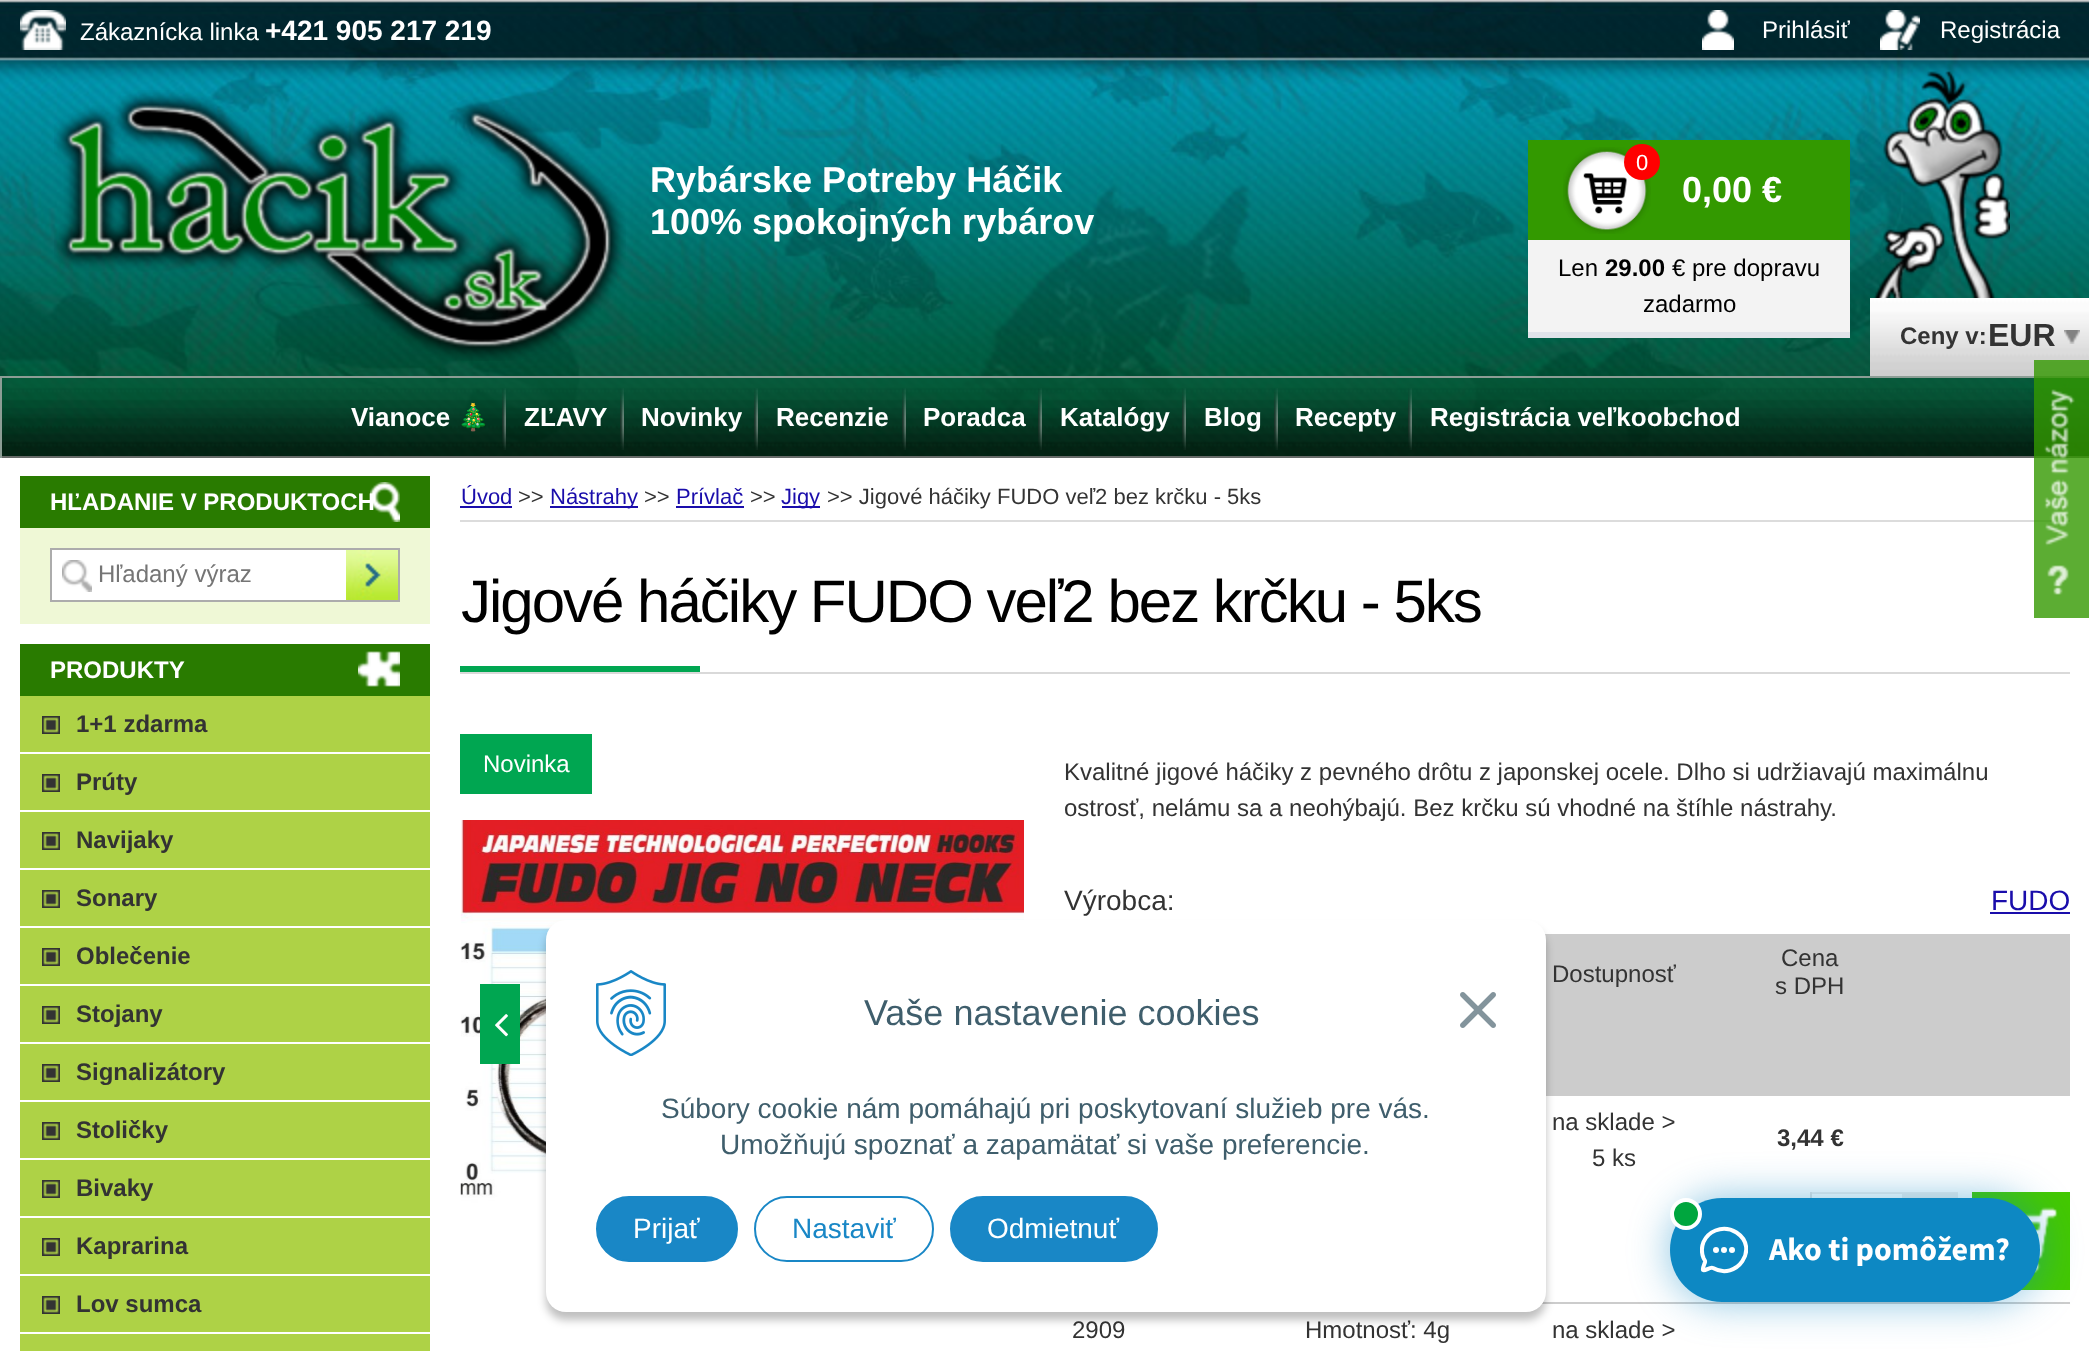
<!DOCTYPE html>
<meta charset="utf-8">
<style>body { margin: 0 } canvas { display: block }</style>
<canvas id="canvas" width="2089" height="1351"></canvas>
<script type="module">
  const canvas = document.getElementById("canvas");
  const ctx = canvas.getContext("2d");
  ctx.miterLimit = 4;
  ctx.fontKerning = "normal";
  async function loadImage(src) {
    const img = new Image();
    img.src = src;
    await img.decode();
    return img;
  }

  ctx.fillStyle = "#ffffff";
  ctx.fillRect(0, 0, 2089, 1351);
  ctx.drawImage(await loadImage("img1.png"), 0, 0, 2089, 456);
  ctx.drawImage(await loadImage("img2.png"), 20, 10, 46, 40);
  ctx.font = "24px Liberation Sans";
  ctx.fillText("Zákaznícka linka", 80, 40);
  ctx.font = "bold 28px Liberation Sans";
  ctx.fillText("+421 905 217 219", 265, 40);
  ctx.drawImage(await loadImage("img3.png"), 54, 90, 572, 271);
  ctx.font = "bold 36px Liberation Sans";
  ctx.fillText("Rybárske Potreby Háčik", 650, 192);
  ctx.fillText("100% spokojných rybárov", 650, 234);
  ctx.drawImage(await loadImage("img4.png"), 1870, 298, 219, 78);
  ctx.font = "bold 24px Liberation Sans";
  ctx.fillStyle = "#333333";
  ctx.fillText("Ceny v:", 1900, 344);
  ctx.drawImage(await loadImage("img5.png"), 2064, 330, 16, 14);
  ctx.font = "bold 32px Liberation Sans";
  ctx.fillText("EUR", 1988, 346);
  ctx.drawImage(await loadImage("img6.png"), 1702, 10, 32, 40);
  ctx.font = "24px Liberation Sans";
  ctx.fillStyle = "#ffffff";
  ctx.fillText("Prihlásiť", 1762, 38);
  ctx.drawImage(await loadImage("img7.png"), 1880, 10, 40, 40);
  ctx.fillText("Registrácia", 1940, 38);
  ctx.fillStyle = "#339900";
  ctx.fillRect(1528, 140, 322, 100);
  ctx.drawImage(await loadImage("img8.png"), 1563, 147, 88, 87);
  ctx.fillStyle = "#ff0000";
  ctx.beginPath();
  ctx.arc(1642, 162, 18, 0, Math.PI * 2);
  ctx.fill();
  ctx.font = "22px Liberation Sans";
  ctx.fillStyle = "#ffffff";
  ctx.fillText("0", 1636, 170);
  ctx.font = "bold 36px Liberation Sans";
  ctx.fillText("0,00 €", 1682, 202);
  ctx.fillStyle = "#f3f3f3";
  ctx.fillRect(1528, 240, 322, 92);
  ctx.fillStyle = "#dfe3e9";
  ctx.fillRect(1528, 332, 322, 6);
  ctx.font = "24px Liberation Sans";
  ctx.fillStyle = "#000000";
  ctx.fillText("Len", 1558, 276);
  ctx.font = "bold 24px Liberation Sans";
  ctx.fillText("29.00", 1605, 276);
  ctx.font = "24px Liberation Sans";
  ctx.fillText("€ pre dopravu", 1672, 276);
  ctx.fillText("zadarmo", 1643, 312);
  ctx.drawImage(await loadImage("img9.png"), 1873, 71, 137, 227);
  ctx.drawImage(await loadImage("img10.png"), 2, 378, 2087, 80);
  ctx.fillStyle = "#8c9d95";
  ctx.fillRect(0, 376, 2089, 2);
  ctx.fillRect(0, 376, 2, 82);
  ctx.drawImage(await loadImage("img11.png"), 502, 388, 4, 62);
  ctx.font = "bold 26px Liberation Sans";
  ctx.fillStyle = "#ffffff";
  ctx.fillText("Vianoce", 351, 426);
  ctx.font = "bold 26px Noto Color Emoji";
  ctx.fillText("🎄", 457, 426);
  ctx.drawImage(await loadImage("img12.png"), 620, 388, 4, 62);
  ctx.font = "bold 26px Liberation Sans";
  ctx.fillText("ZĽAVY", 524, 426);
  ctx.drawImage(await loadImage("img13.png"), 754, 388, 4, 62);
  ctx.fillText("Novinky", 641, 426);
  ctx.drawImage(await loadImage("img14.png"), 902, 388, 4, 62);
  ctx.fillText("Recenzie", 776, 426);
  ctx.drawImage(await loadImage("img15.png"), 1038, 388, 4, 62);
  ctx.fillText("Poradca", 923, 426);
  ctx.drawImage(await loadImage("img16.png"), 1182, 388, 4, 62);
  ctx.fillText("Katalógy", 1060, 426);
  ctx.drawImage(await loadImage("img17.png"), 1274, 388, 4, 62);
  ctx.fillText("Blog", 1204, 426);
  ctx.drawImage(await loadImage("img18.png"), 1408, 388, 4, 62);
  ctx.fillText("Recepty", 1295, 426);
  ctx.fillText("Registrácia veľkoobchod", 1430, 426);
  ctx.fillStyle = "#297b00";
  ctx.fillRect(20, 476, 410, 52);
  ctx.font = "bold 24px Liberation Sans";
  ctx.fillStyle = "#ffffff";
  ctx.fillText("HĽADANIE V PRODUKTOCH", 50, 510);
  ctx.drawImage(await loadImage("img19.png"), 370, 482, 30, 40);
  ctx.fillStyle = "#eff8d6";
  ctx.fillRect(20, 528, 410, 96);
  ctx.fillStyle = "#ffffff";
  ctx.fillRect(52, 550, 294, 50);
  ctx.drawImage(await loadImage("img20.png"), 62, 560, 30, 32);
  ctx.strokeStyle = "#acacac";
  ctx.lineWidth = 2;
  ctx.strokeRect(51, 549, 348, 52);
  ctx.font = "24px Liberation Sans";
  ctx.fillStyle = "#757575";
  ctx.fillText("Hľadaný výraz", 98, 582);
  ctx.drawImage(await loadImage("img21.png"), 346, 550, 52, 50);
  ctx.fillStyle = "#297b00";
  ctx.fillRect(20, 644, 410, 52);
  ctx.font = "bold 24px Liberation Sans";
  ctx.fillStyle = "#ffffff";
  ctx.fillText("PRODUKTY", 50, 678);
  ctx.drawImage(await loadImage("img22.png"), 358, 651, 42, 36);
  ctx.fillStyle = "#aed246";
  ctx.fillRect(20, 696, 410, 56);
  ctx.drawImage(await loadImage("img23.png"), 42, 716, 18, 18);
  ctx.fillStyle = "#333333";
  ctx.fillText("1+1 zdarma", 76, 732);
  ctx.fillStyle = "#aed246";
  ctx.fillRect(20, 754, 410, 56);
  ctx.drawImage(await loadImage("img23.png"), 42, 774, 18, 18);
  ctx.fillStyle = "#333333";
  ctx.fillText("Prúty", 76, 790);
  ctx.fillStyle = "#aed246";
  ctx.fillRect(20, 812, 410, 56);
  ctx.drawImage(await loadImage("img23.png"), 42, 832, 18, 18);
  ctx.fillStyle = "#333333";
  ctx.fillText("Navijaky", 76, 848);
  ctx.fillStyle = "#aed246";
  ctx.fillRect(20, 870, 410, 56);
  ctx.drawImage(await loadImage("img23.png"), 42, 890, 18, 18);
  ctx.fillStyle = "#333333";
  ctx.fillText("Sonary", 76, 906);
  ctx.fillStyle = "#aed246";
  ctx.fillRect(20, 928, 410, 56);
  ctx.drawImage(await loadImage("img23.png"), 42, 948, 18, 18);
  ctx.fillStyle = "#333333";
  ctx.fillText("Oblečenie", 76, 964);
  ctx.fillStyle = "#aed246";
  ctx.fillRect(20, 986, 410, 56);
  ctx.drawImage(await loadImage("img23.png"), 42, 1006, 18, 18);
  ctx.fillStyle = "#333333";
  ctx.fillText("Stojany", 76, 1022);
  ctx.fillStyle = "#aed246";
  ctx.fillRect(20, 1044, 410, 56);
  ctx.drawImage(await loadImage("img23.png"), 42, 1064, 18, 18);
  ctx.fillStyle = "#333333";
  ctx.fillText("Signalizátory", 76, 1080);
  ctx.fillStyle = "#aed246";
  ctx.fillRect(20, 1102, 410, 56);
  ctx.drawImage(await loadImage("img23.png"), 42, 1122, 18, 18);
  ctx.fillStyle = "#333333";
  ctx.fillText("Stoličky", 76, 1138);
  ctx.fillStyle = "#aed246";
  ctx.fillRect(20, 1160, 410, 56);
  ctx.drawImage(await loadImage("img23.png"), 42, 1180, 18, 18);
  ctx.fillStyle = "#333333";
  ctx.fillText("Bivaky", 76, 1196);
  ctx.fillStyle = "#aed246";
  ctx.fillRect(20, 1218, 410, 56);
  ctx.drawImage(await loadImage("img23.png"), 42, 1238, 18, 18);
  ctx.fillStyle = "#333333";
  ctx.fillText("Kaprarina", 76, 1254);
  ctx.fillStyle = "#aed246";
  ctx.fillRect(20, 1276, 410, 56);
  ctx.drawImage(await loadImage("img23.png"), 42, 1296, 18, 18);
  ctx.fillStyle = "#333333";
  ctx.fillText("Lov sumca", 76, 1312);
  ctx.fillStyle = "#aed246";
  ctx.fillRect(20, 1334, 410, 17);
  ctx.fillStyle = "#dcdcdc";
  ctx.fillRect(460, 520, 1610, 2);
  ctx.font = "22px Liberation Sans";
  ctx.fillStyle = "#1a0dab";
  ctx.fillText("Úvod", 461, 504);
  ctx.fillRect(460, 506, 52, 2);
  ctx.fillStyle = "#333333";
  ctx.fillText(">>", 518, 504);
  ctx.fillStyle = "#1a0dab";
  ctx.fillRect(550, 506, 88, 2);
  ctx.fillText("Nástrahy", 550, 504);
  ctx.fillStyle = "#333333";
  ctx.fillText(">>", 644, 504);
  ctx.fillStyle = "#1a0dab";
  ctx.fillText("Prívlač", 676, 504);
  ctx.fillRect(676, 506, 68, 2);
  ctx.fillStyle = "#333333";
  ctx.fillText(">>", 750, 504);
  ctx.fillStyle = "#1a0dab";
  ctx.fillRect(782, 506, 38, 2);
  ctx.fillText("Jigy", 781, 504);
  ctx.fillStyle = "#333333";
  ctx.fillText(">> Jigové háčiky FUDO veľ2 bez krčku - 5ks", 827, 504);
  ctx.fillStyle = "#d9d9d9";
  ctx.fillRect(460, 672, 1610, 2);
  ctx.letterSpacing = "-2px";
  ctx.font = "60px Liberation Sans";
  ctx.fillStyle = "#000000";
  ctx.fillText("Jigové háčiky FUDO veľ2 bez krčku - 5ks", 461, 622);
  ctx.fillStyle = "#00a651";
  ctx.fillRect(460, 666, 240, 6);
  ctx.fillRect(460, 734, 132, 60);
  ctx.letterSpacing = "0px";
  ctx.font = "24px Liberation Sans";
  ctx.fillStyle = "#ffffff";
  ctx.fillText("Novinka", 483, 772);
  ctx.drawImage(await loadImage("img24.png"), 460, 820, 564, 422);
  ctx.fillStyle = "#00a651";
  ctx.fillRect(480, 984, 40, 80);
  ctx.drawImage(await loadImage("img25.png"), 495, 1014, 13, 23);
  ctx.fillStyle = "#333333";
  ctx.fillText("Kvalitné jigové háčiky z pevného drôtu z japonskej ocele. Dlho si udržiavajú maximálnu", 1064, 780);
  ctx.fillText("ostrosť, nelámu sa a neohýbajú. Bez krčku sú vhodné na štíhle nástrahy.", 1064, 816);
  ctx.font = "28px Liberation Sans";
  ctx.fillText("Výrobca:", 1064, 910);
  ctx.fillStyle = "#1a0dab";
  ctx.fillText("FUDO", 1991, 910);
  ctx.fillRect(1990, 912, 80, 2);
  ctx.fillStyle = "#cccccc";
  ctx.fillRect(1545, 934, 525, 160);
  ctx.font = "24px Liberation Sans";
  ctx.fillStyle = "#333333";
  ctx.fillText("Dostupnosť", 1552, 982);
  ctx.fillText("Cena", 1781, 966);
  ctx.fillText("s DPH", 1775, 994);
  ctx.fillStyle = "#cccccc";
  ctx.fillRect(1546, 1094, 524, 2);
  ctx.fillStyle = "#333333";
  ctx.fillText("na sklade >", 1552, 1130);
  ctx.fillText("5 ks", 1592, 1166);
  ctx.font = "bold 24px Liberation Sans";
  ctx.fillText("3,44 €", 1777, 1146);
  ctx.fillStyle = "#eeeeee";
  ctx.fillRect(1812, 1192, 146, 6);
  ctx.fillStyle = "#e3e3e3";
  ctx.fillRect(1810, 1192, 2, 6);
  ctx.fillStyle = "#ffffff";
  ctx.fillRect(1812, 1194, 90, 4);
  ctx.fillStyle = "#43c800";
  ctx.fillRect(1972, 1192, 98, 98);
  ctx.drawImage(await loadImage("img26.png"), 2024, 1207, 34, 66);
  ctx.fillStyle = "#cccccc";
  ctx.fillRect(1542, 1302, 528, 2);
  ctx.font = "24px Liberation Sans";
  ctx.fillStyle = "#333333";
  ctx.fillText("2909", 1072, 1338);
  ctx.fillText("Hmotnosť: 4g", 1305, 1338);
  ctx.fillText("na sklade >", 1552, 1338);
  ctx.fillStyle = "rgba(51, 153, 0, 0.8)";
  ctx.fillRect(2034, 360, 55, 258);
  ctx.drawImage(await loadImage("img27.png"), 2044, 389, 31, 206);
  ctx.fillStyle = "rgba(0, 0, 0, 0.25)";
  ctx.filter = "blur(4px)";
  ctx.beginPath();
  ctx.roundRect(546, 928, 1000, 392, 20);
  ctx.fill();
  ctx.filter = "none";
  ctx.fillStyle = "#ffffff";
  ctx.beginPath();
  ctx.roundRect(546, 920, 1000, 392, 20);
  ctx.fill();
  ctx.drawImage(await loadImage("img28.png"), 596, 970, 70, 86);
  ctx.font = "36px Liberation Sans";
  ctx.fillStyle = "#3f5e6c";
  ctx.fillText("Vaše nastavenie cookies", 864, 1025);
  ctx.drawImage(await loadImage("img29.png"), 1460, 992, 36, 36);
  ctx.font = "28px Liberation Sans";
  ctx.fillText("Súbory cookie nám pomáhajú pri poskytovaní služieb pre vás.", 661, 1118);
  ctx.fillText("Umožňujú spoznať a zapamätať si vaše preferencie.", 720, 1154);
  ctx.fillStyle = "#1987c6";
  ctx.beginPath();
  ctx.roundRect(597, 1197, 140, 64, 32);
  ctx.fill();
  ctx.strokeStyle = "#1987c6";
  ctx.stroke();
  ctx.fillStyle = "#ffffff";
  ctx.fillText("Prijať", 633, 1238);
  ctx.beginPath();
  ctx.roundRect(755, 1197, 178, 64, 32);
  ctx.stroke();
  ctx.fillStyle = "#1987c6";
  ctx.fillText("Nastaviť", 792, 1238);
  ctx.beginPath();
  ctx.roundRect(951, 1197, 206, 64, 32);
  ctx.fill();
  ctx.stroke();
  ctx.fillStyle = "#ffffff";
  ctx.fillText("Odmietnuť", 987, 1238);
  ctx.fillStyle = "rgba(13, 136, 195, 0.5)";
  ctx.filter = "blur(20px)";
  ctx.beginPath();
  ctx.roundRect(1670, 1198, 370, 104, 52);
  ctx.fill();
  ctx.filter = "none";
  ctx.fillStyle = "#0d88c3";
  ctx.beginPath();
  ctx.roundRect(1670, 1198, 370, 104, 52);
  ctx.fill();
  ctx.save();
  ctx.beginPath();
  ctx.rect(1700, 1226, 48, 48);
  ctx.clip();
  ctx.beginPath();
  ctx.moveTo(1713, 1268);
  ctx.bezierCurveTo(1736.5, 1281.5, 1760, 1248, 1736.5, 1232.5);
  ctx.bezierCurveTo(1730, 1228.5, 1722, 1228, 1715.5, 1230.5);
  ctx.bezierCurveTo(1710.5, 1232.5, 1706, 1236.5, 1703.5, 1242);
  ctx.bezierCurveTo(1701.5, 1247, 1701.5, 1253, 1703.5, 1258);
  ctx.bezierCurveTo(1705, 1261.5, 1706, 1260.5, 1704.5, 1263.5);
  ctx.bezierCurveTo(1704.5, 1264, 1702, 1269, 1703, 1270);
  ctx.bezierCurveTo(1705, 1271.5, 1710, 1266.5, 1713, 1268);
  ctx.closePath();
  ctx.strokeStyle = "#ffffff";
  ctx.lineWidth = 4;
  ctx.lineCap = "round";
  ctx.lineJoin = "round";
  ctx.stroke();
  ctx.restore();
  ctx.fillStyle = "#00a63e";
  ctx.beginPath();
  ctx.arc(1686, 1214, 14, 0, Math.PI * 2);
  ctx.fill();
  ctx.strokeStyle = "#ffffff";
  ctx.lineWidth = 4;
  ctx.stroke();
  ctx.fillStyle = "#ffffff";
  ctx.beginPath();
  ctx.arc(1716, 1250, 3, 0, Math.PI * 2);
  ctx.fill();
  ctx.beginPath();
  ctx.arc(1724, 1250, 3, 0, Math.PI * 2);
  ctx.fill();
  ctx.beginPath();
  ctx.arc(1732, 1250, 3, 0, Math.PI * 2);
  ctx.fill();
  ctx.font = "bold 32px Source Sans Pro";
  ctx.fillText("Ako ti pomôžem?", 1769, 1260);
</script>
